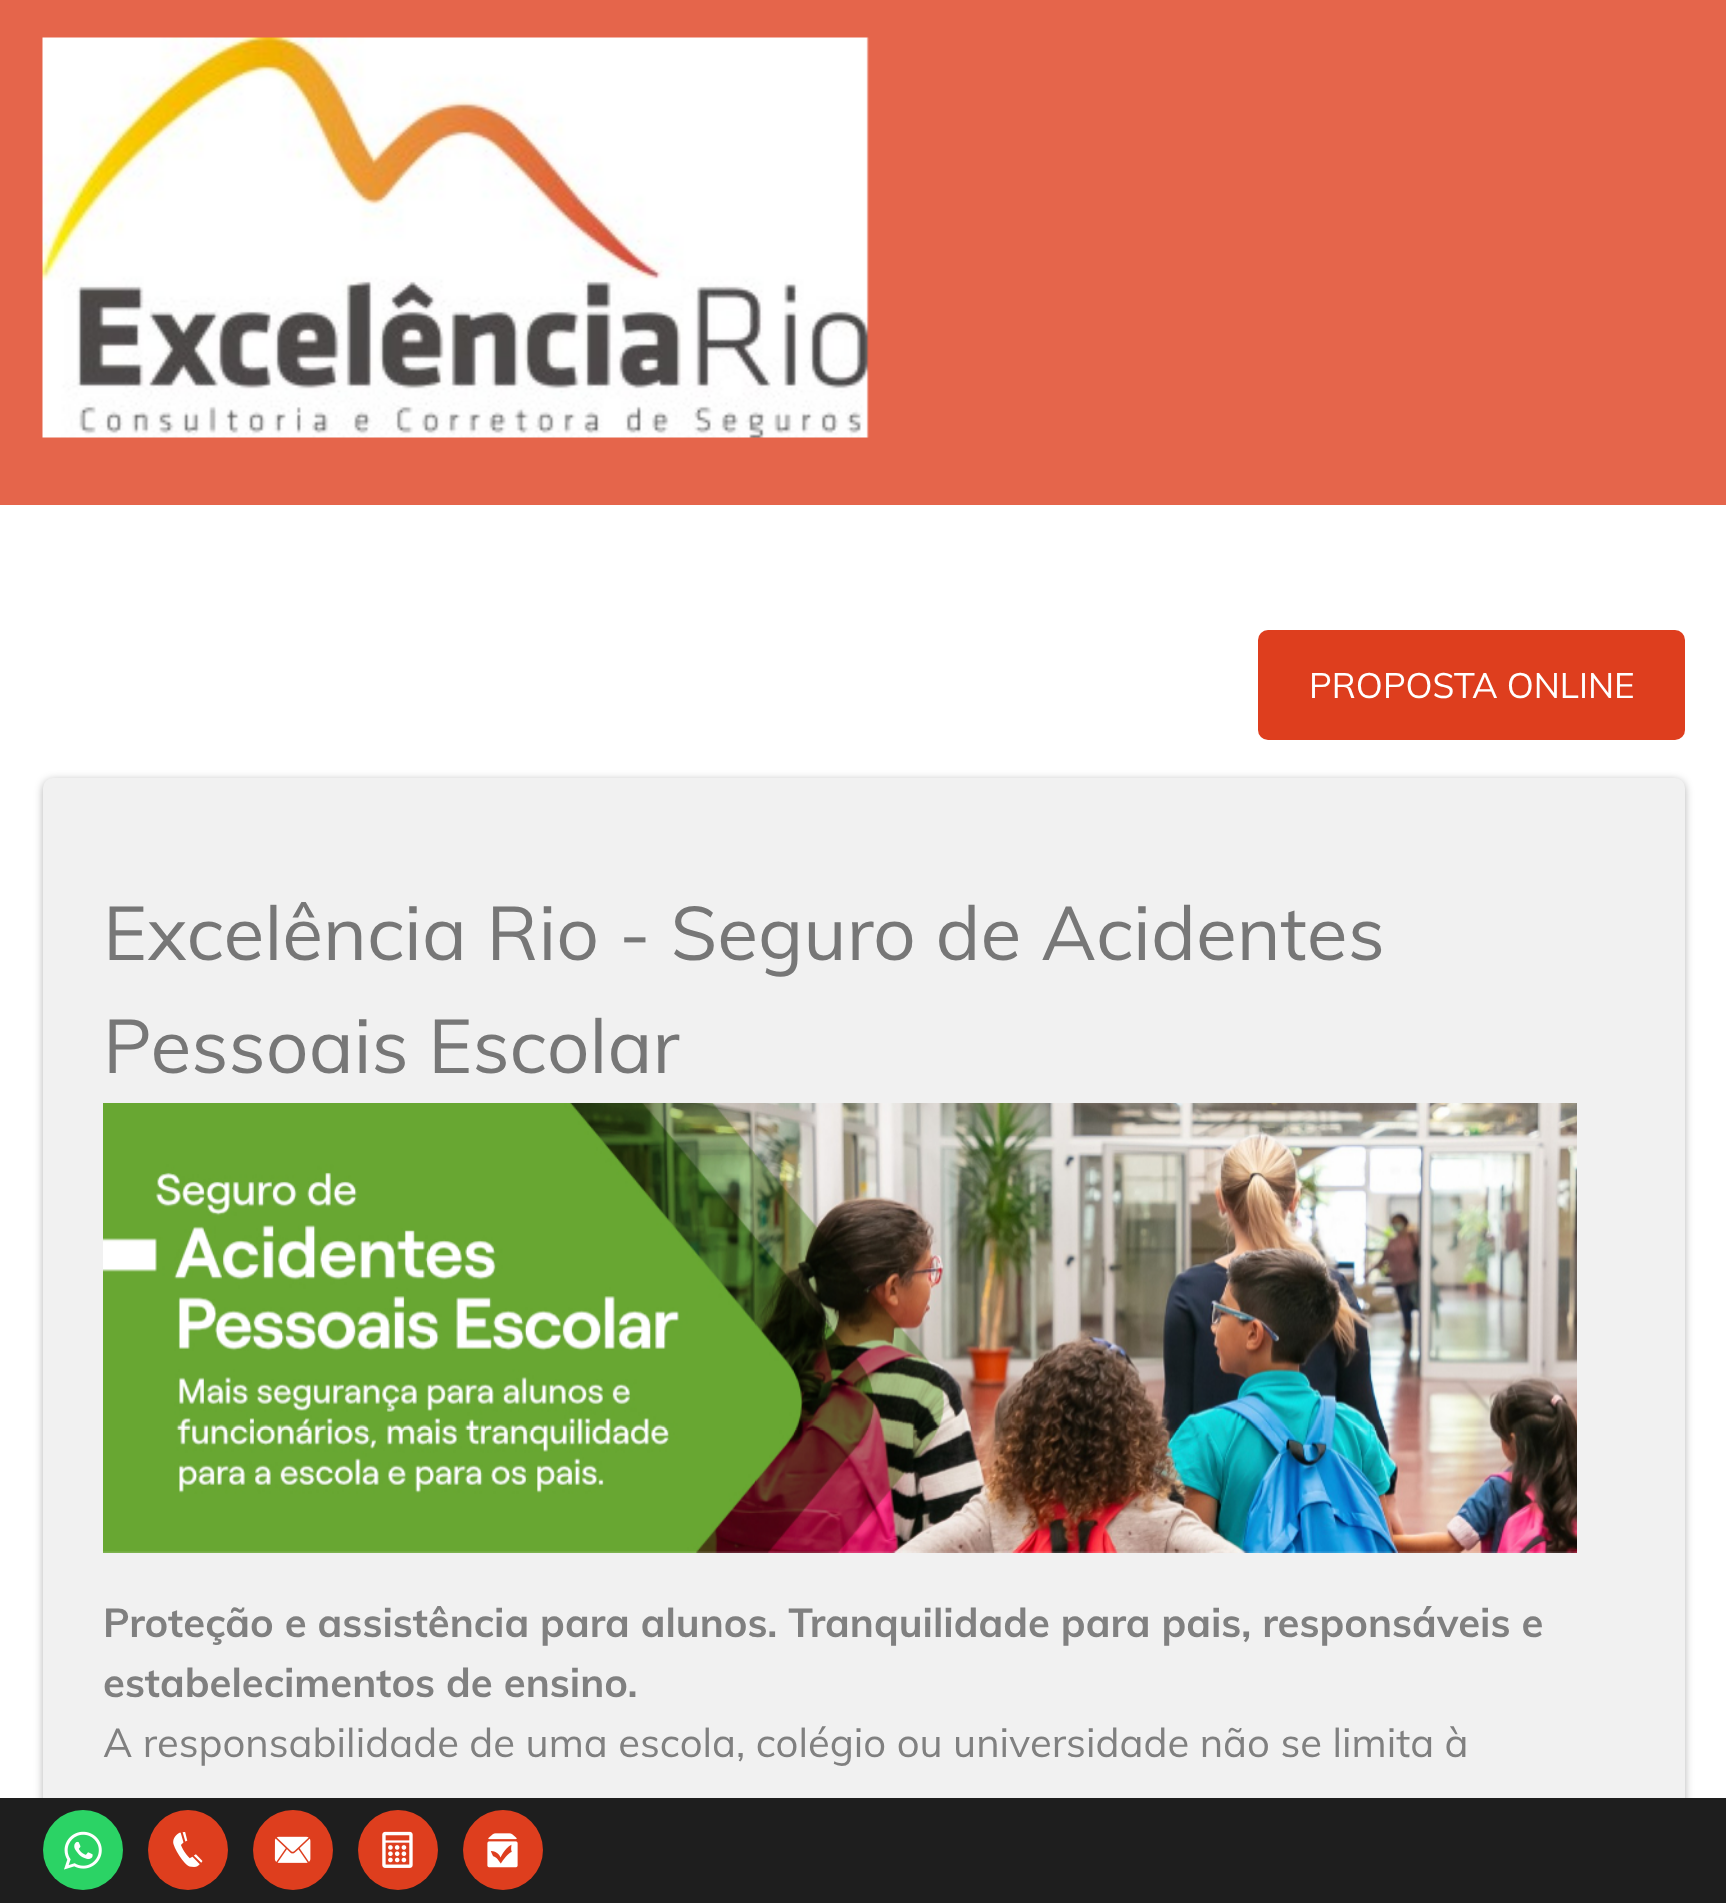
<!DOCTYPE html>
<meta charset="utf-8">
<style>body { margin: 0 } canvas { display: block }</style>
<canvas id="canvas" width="1726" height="1903"></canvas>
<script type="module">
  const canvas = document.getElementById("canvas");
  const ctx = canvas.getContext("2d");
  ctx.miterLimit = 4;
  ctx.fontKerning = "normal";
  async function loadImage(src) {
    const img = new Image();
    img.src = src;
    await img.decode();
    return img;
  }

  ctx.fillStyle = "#ffffff";
  ctx.fillRect(0, 0, 1726, 1903);
  ctx.fillStyle = "#e5654b";
  ctx.fillRect(0, 0, 1726, 505);
  ctx.drawImage(await loadImage("img1.png"), 42, 37, 827, 401);
  ctx.fillStyle = "#de3e1e";
  ctx.beginPath();
  ctx.roundRect(1258, 630, 427, 110, 10);
  ctx.fill();
  ctx.font = "35px Muli";
  ctx.fillStyle = "#ffffff";
  ctx.fillText("PROPOSTA ONLINE", 1309, 698);
  ctx.fillStyle = "rgba(0, 0, 0, 0.3)";
  ctx.filter = "blur(4px)";
  ctx.beginPath();
  ctx.roundRect(43, 780, 1642, 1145, 10);
  ctx.fill();
  ctx.filter = "none";
  ctx.fillStyle = "#f1f1f1";
  ctx.beginPath();
  ctx.roundRect(43, 778, 1642, 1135, 10);
  ctx.fill();
  ctx.font = "75px Muli";
  ctx.fillStyle = "#777777";
  ctx.fillText("Excelência Rio - Seguro de Acidentes", 103, 960);
  ctx.fillText("Pessoais Escolar", 103, 1073);
  ctx.drawImage(await loadImage("img2.png"), 103, 1103, 1474, 450);
  ctx.font = "bold 40px Muli";
  ctx.fillStyle = "#808080";
  ctx.fillText("Proteção e assistência para alunos. Tranquilidade para pais, responsáveis e", 103, 1637);
  ctx.fillText("estabelecimentos de ensino.", 103, 1697);
  ctx.font = "40px Muli";
  ctx.fillText("A responsabilidade de uma escola, colégio ou universidade não se limita à", 103, 1757);
  ctx.fillStyle = "#1e1e1e";
  ctx.fillRect(0, 1798, 1726, 105);
  ctx.fillStyle = "#2bd365";
  ctx.beginPath();
  ctx.arc(83, 1850, 40, 0, Math.PI * 2);
  ctx.fill();
  ctx.drawImage(await loadImage("img3.png"), 64, 1831, 38, 39);
  ctx.fillStyle = "#de3e1e";
  ctx.beginPath();
  ctx.arc(188, 1850, 40, 0, Math.PI * 2);
  ctx.fill();
  ctx.drawImage(await loadImage("img4.png"), 173, 1832, 30, 35);
  ctx.beginPath();
  ctx.arc(293, 1850, 40, 0, Math.PI * 2);
  ctx.fill();
  ctx.drawImage(await loadImage("img5.png"), 274, 1836, 37, 27);
  ctx.beginPath();
  ctx.arc(398, 1850, 40, 0, Math.PI * 2);
  ctx.fill();
  ctx.drawImage(await loadImage("img6.png"), 382, 1831, 31, 37);
  ctx.beginPath();
  ctx.arc(503, 1850, 40, 0, Math.PI * 2);
  ctx.fill();
  ctx.drawImage(await loadImage("img7.png"), 487, 1833, 31, 35);
</script>
